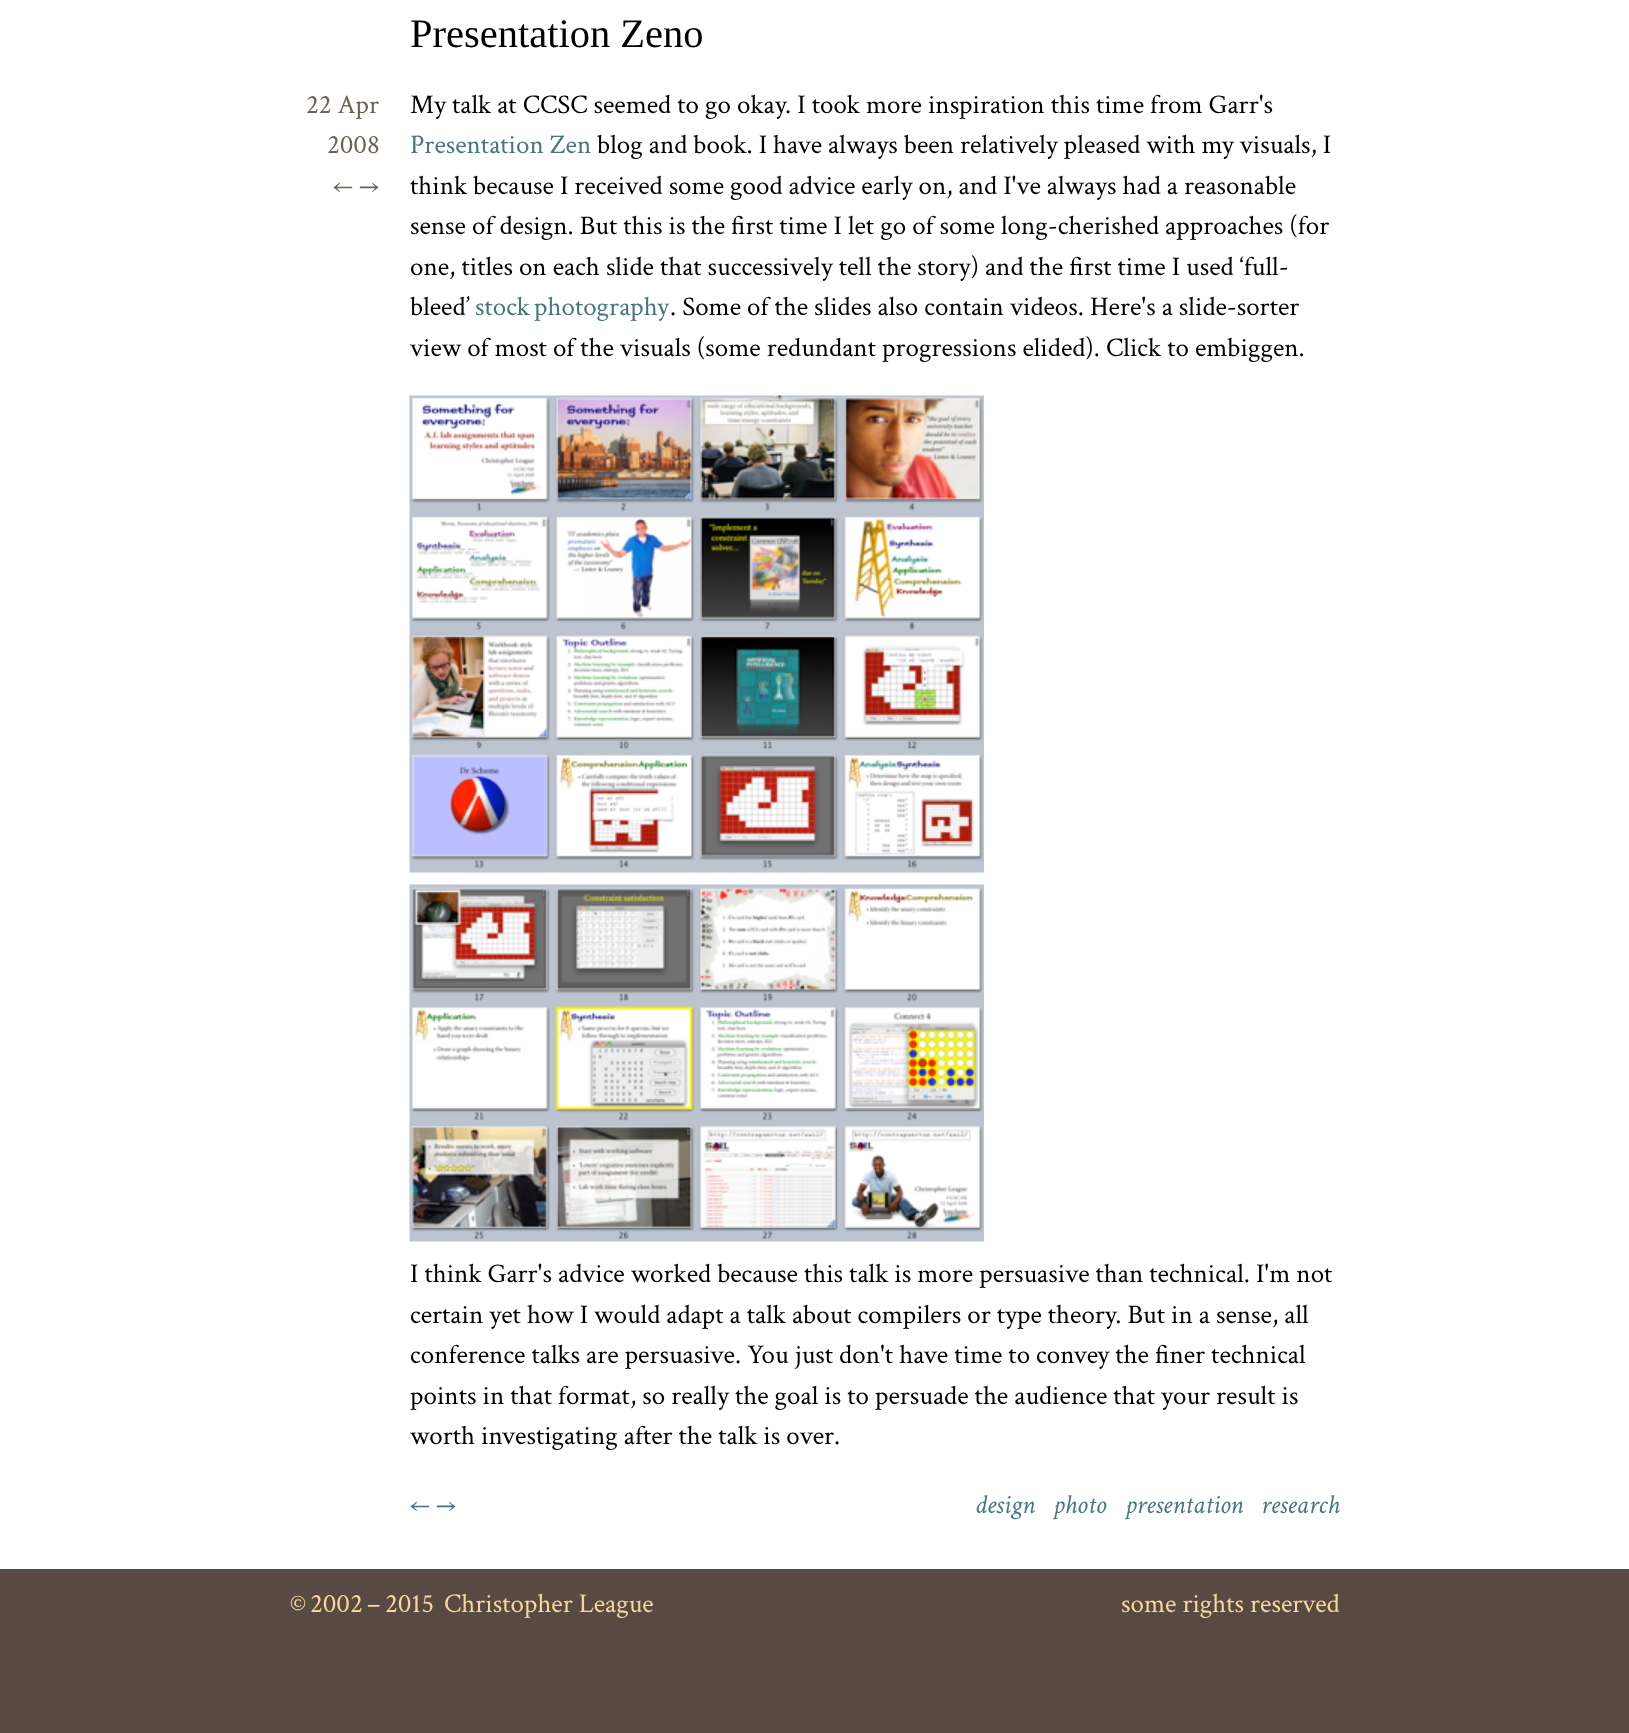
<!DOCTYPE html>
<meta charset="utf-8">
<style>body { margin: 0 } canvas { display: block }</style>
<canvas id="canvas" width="1629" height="1733"></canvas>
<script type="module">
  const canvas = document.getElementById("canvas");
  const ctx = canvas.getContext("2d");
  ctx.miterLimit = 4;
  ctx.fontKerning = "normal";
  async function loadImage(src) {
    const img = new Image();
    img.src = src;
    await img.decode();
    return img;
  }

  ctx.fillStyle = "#ffffff";
  ctx.fillRect(0, 0, 1629, 1733);
  ctx.font = "40.5px Liberation Serif";
  ctx.fillStyle = "#000000";
  ctx.fillText("Presentation Zeno", 410, 47);
  ctx.font = "27px Crimson Text";
  ctx.fillStyle = "#6b6258";
  ctx.fillText("22 Apr", 306, 113);
  ctx.fillText("2008", 327, 153);
  ctx.fillText("← →", 333, 194);
  ctx.fillStyle = "#000000";
  ctx.fillText("My talk at CCSC seemed to go okay. I took more inspiration this time from Garr's", 410, 113);
  ctx.fillStyle = "#46767f";
  ctx.fillText("Presentation Zen", 410, 153);
  ctx.fillStyle = "#000000";
  ctx.fillText("blog and book. I have always been relatively pleased with my visuals, I", 597, 153);
  ctx.fillText("think because I received some good advice early on, and I've always had a reasonable", 410, 194);
  ctx.fillText("sense of design. But this is the first time I let go of some long-cherished approaches (for", 410, 234);
  ctx.fillText("one, titles on each slide that successively tell the story) and the first time I used ‘full-", 410, 275);
  ctx.fillText("bleed’", 410, 315);
  ctx.wordSpacing = "-2px";
  ctx.fillStyle = "#46767f";
  ctx.fillText("stock photography", 475, 315);
  ctx.wordSpacing = "0px";
  ctx.fillStyle = "#000000";
  ctx.fillText(". Some of the slides also contain videos. Here's a slide-sorter", 670, 315);
  ctx.fillText("view of most of the visuals (some redundant progressions elided). Click to embiggen.", 410, 356);
  ctx.drawImage(await loadImage("img1.png"), 409, 395, 575, 478);
  ctx.drawImage(await loadImage("img2.png"), 409, 884, 575, 358);
  ctx.fillText("I think Garr's advice worked because this talk is more persuasive than technical. I'm not", 410, 1282);
  ctx.fillText("certain yet how I would adapt a talk about compilers or type theory. But in a sense, all", 410, 1323);
  ctx.fillText("conference talks are persuasive. You just don't have time to convey the finer technical", 410, 1363);
  ctx.fillText("points in that format, so really the goal is to persuade the audience that your result is", 410, 1404);
  ctx.fillText("worth investigating after the talk is over.", 410, 1444);
  ctx.fillStyle = "#46767f";
  ctx.fillText("← →", 410, 1513);
  ctx.font = "italic 27px Crimson Text";
  ctx.fillText("design", 975, 1513);
  ctx.fillText("photo", 1053, 1513);
  ctx.fillText("presentation", 1125, 1513);
  ctx.fillText("research", 1261, 1513);
  ctx.fillStyle = "#594943";
  ctx.fillRect(0, 1569, 1629, 164);
  ctx.font = "27px Crimson Text";
  ctx.fillStyle = "#f7d898";
  ctx.fillText("©", 290, 1612);
  ctx.fillText("2002", 310, 1612);
  ctx.fillText("–", 367, 1612);
  ctx.fillText("2015", 385, 1612);
  ctx.fillText("Christopher League", 444, 1612);
  ctx.fillText("some rights reserved", 1121, 1612);
</script>
